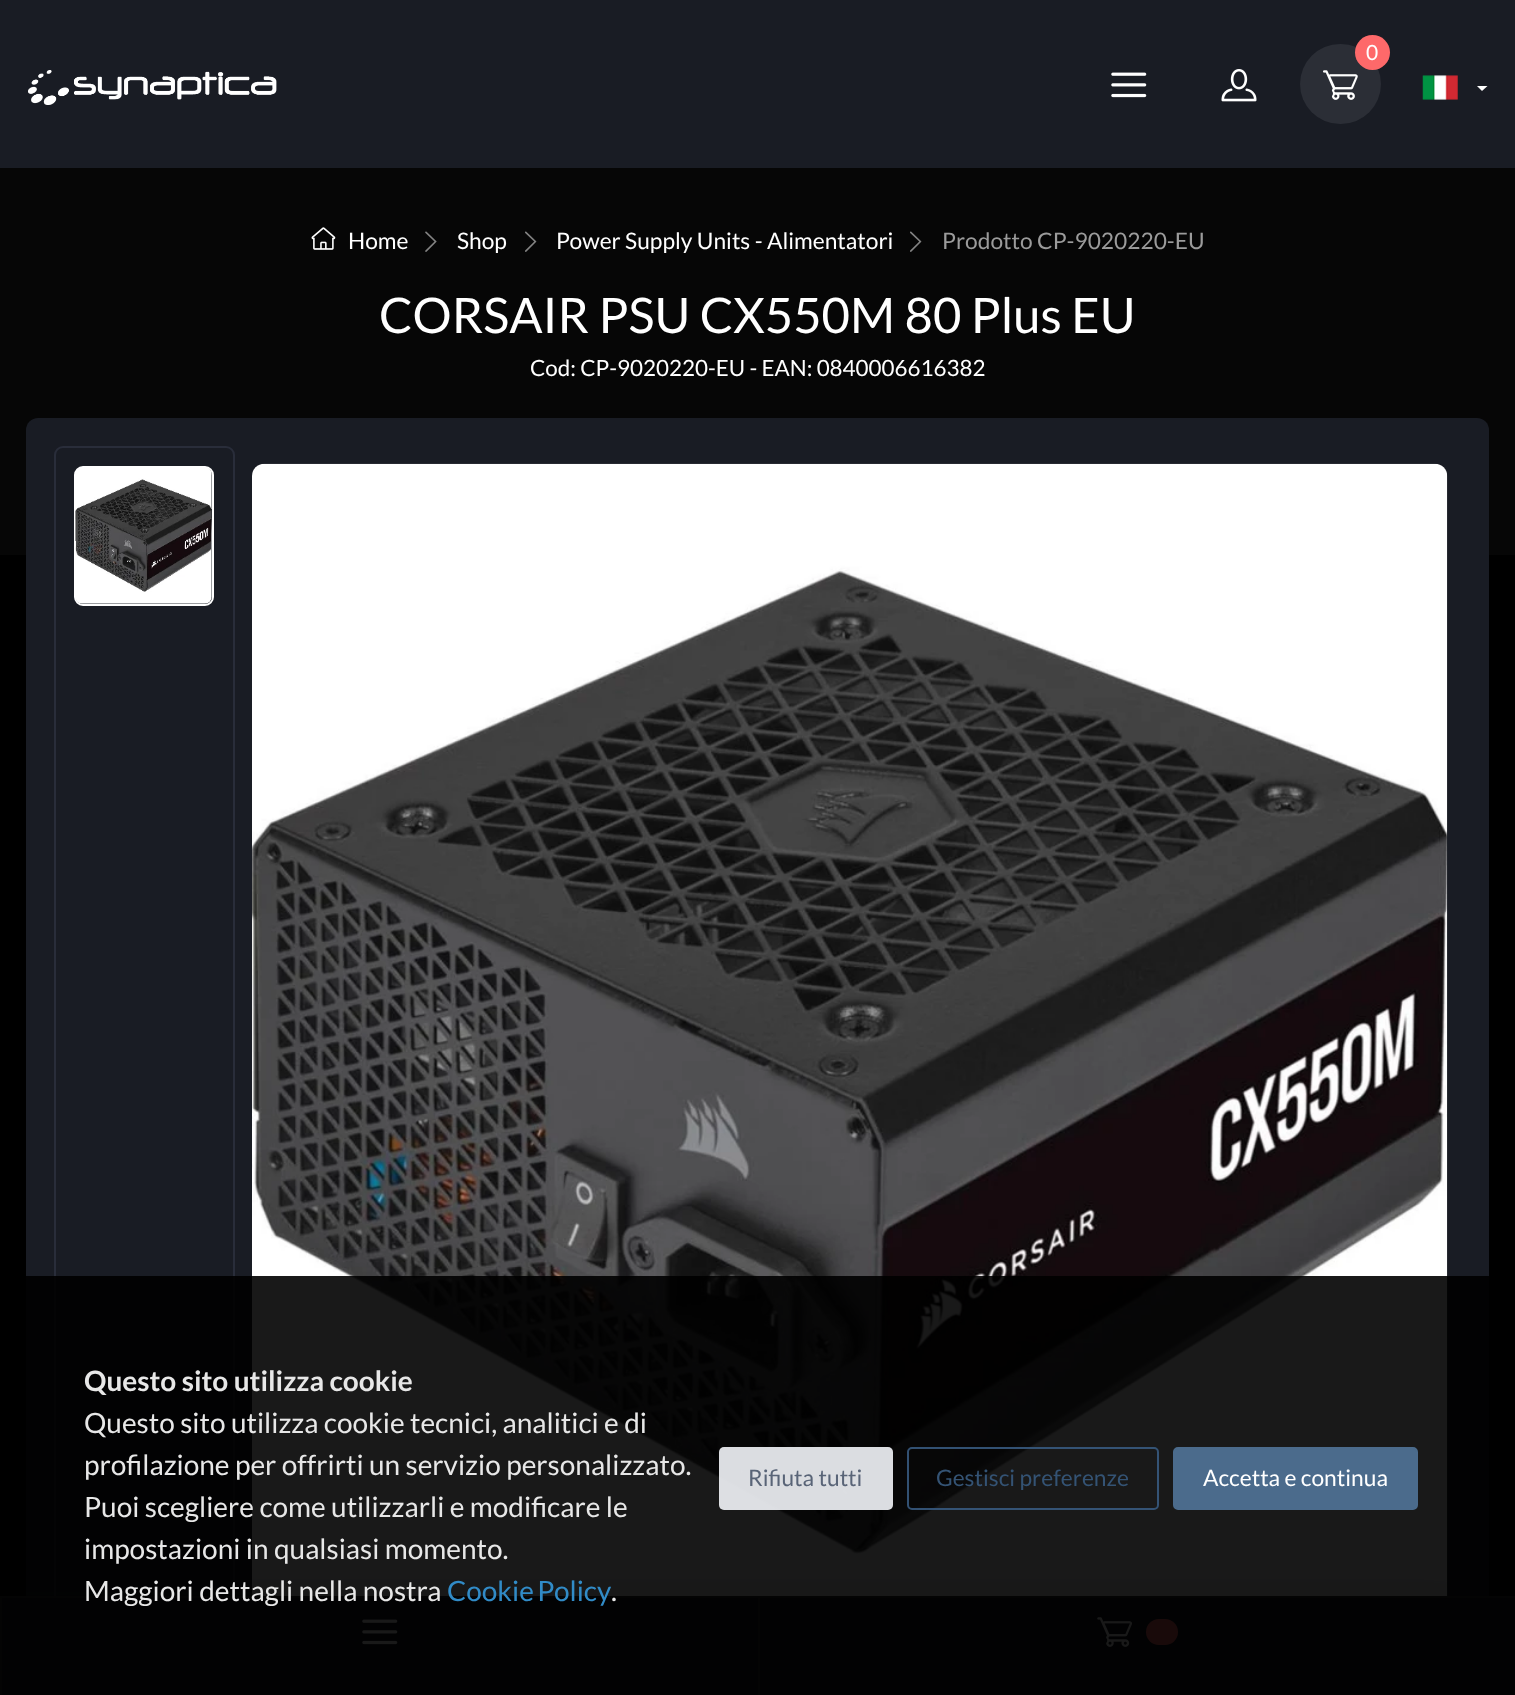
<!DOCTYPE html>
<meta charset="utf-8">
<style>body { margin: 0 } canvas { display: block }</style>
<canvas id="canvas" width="1515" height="1695"></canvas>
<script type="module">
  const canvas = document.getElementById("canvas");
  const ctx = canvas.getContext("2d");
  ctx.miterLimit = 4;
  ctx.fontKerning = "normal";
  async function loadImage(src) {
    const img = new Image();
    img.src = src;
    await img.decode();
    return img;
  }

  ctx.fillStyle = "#000000";
  ctx.fillRect(0, 0, 1515, 1695);
  ctx.fillStyle = "#191c24";
  ctx.fillRect(0, 0, 1515, 168);
  ctx.fillStyle = "#2b2e36";
  ctx.beginPath();
  ctx.roundRect(1300, 44, 81, 80, 40);
  ctx.fill();
  ctx.fillStyle = "#fe696a";
  ctx.beginPath();
  ctx.arc(1372.5, 52.5, 17.5, 0, Math.PI * 2);
  ctx.fill();
  ctx.font = "21px Lato";
  ctx.fillStyle = "#ffffff";
  ctx.fillText("0", 1366, 60);
  ctx.drawImage(await loadImage("img1.png"), 1323, 70, 35, 30);
  ctx.drawImage(await loadImage("img2.png"), 1111, 72, 36, 26);
  ctx.drawImage(await loadImage("img3.png"), 1221, 69, 36, 33);
  ctx.drawImage(await loadImage("img4.png"), 1422, 75, 36, 25);
  ctx.beginPath();
  ctx.moveTo(1477, 86);
  ctx.lineTo(1487.5, 86);
  ctx.lineTo(1482, 91);
  ctx.closePath();
  ctx.fill();
  ctx.drawImage(await loadImage("img5.png"), 28, 70, 249, 35);
  ctx.fillStyle = "#060606";
  ctx.fillRect(0, 168, 1515, 387);
  ctx.drawImage(await loadImage("img6.png"), 311, 227, 25, 23);
  ctx.font = "22.75px Lato";
  ctx.fillStyle = "#ffffff";
  ctx.fillText("Home", 348, 249);
  ctx.drawImage(await loadImage("img7.png"), 425, 231, 12, 21);
  ctx.fillText("Shop", 457, 249);
  ctx.drawImage(await loadImage("img8.png"), 525, 231, 12, 21);
  ctx.fillText("Power Supply Units - Alimentatori", 556, 249);
  ctx.drawImage(await loadImage("img8.png"), 910, 231, 12, 21);
  ctx.fillStyle = "#9b9b9b";
  ctx.fillText("Prodotto CP-9020220-EU", 942, 249);
  ctx.font = "49px Lato";
  ctx.fillStyle = "#ffffff";
  ctx.fillText("CORSAIR PSU CX550M 80 Plus EU", 379, 333);
  ctx.font = "22.4px Lato";
  ctx.fillText("Cod: CP-9020220-EU - EAN: 0840006616382", 530, 376);
  ctx.fillStyle = "#191c24";
  ctx.beginPath();
  ctx.roundRect(26, 418, 1463, 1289, 12);
  ctx.fill();
  ctx.beginPath();
  ctx.roundRect(55, 447, 179, 1197, 8);
  ctx.strokeStyle = "#292d3a";
  ctx.lineWidth = 2;
  ctx.stroke();
  ctx.beginPath();
  ctx.roundRect(75, 467, 138, 138, 8);
  ctx.strokeStyle = "#ffffff";
  ctx.stroke();
  ctx.drawImage(await loadImage("img9.png"), 75, 468, 137, 136);
  ctx.drawImage(await loadImage("img10.png"), 252, 463, 1196, 1133);
  ctx.fillStyle = "rgba(43, 52, 69, 0.15)";
  ctx.filter = "blur(28px)";
  ctx.beginPath();
  ctx.rect(-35, 1596, 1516, 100);
  ctx.fill();
  ctx.filter = "none";
  ctx.fillStyle = "#191c24";
  ctx.fillRect(2, 1598, 1513, 97);
  ctx.fillStyle = "#303030";
  ctx.fillRect(0, 1596, 1515, 2);
  ctx.fillRect(0, 1598, 2, 97);
  ctx.drawImage(await loadImage("img2.png"), 362, 1619, 36, 26);
  ctx.fillRect(758, 1598, 2, 97);
  ctx.drawImage(await loadImage("img11.png"), 1097, 1617, 35, 30);
  ctx.fillStyle = "#fe696a";
  ctx.beginPath();
  ctx.roundRect(1146, 1619, 32, 26, 13);
  ctx.fill();
  ctx.fillStyle = "rgba(0, 0, 0, 0.9)";
  ctx.fillRect(0, 1276, 1515, 419);
  ctx.font = "bold 28px Lato";
  ctx.fillStyle = "#e7e7e7";
  ctx.fillText("Questo sito utilizza cookie", 84, 1391);
  ctx.font = "28px Lato";
  ctx.fillText("Questo sito utilizza cookie tecnici, analitici e di", 84, 1433);
  ctx.fillText("profilazione per offrirti un servizio personalizzato.", 84, 1475);
  ctx.fillText("Puoi scegliere come utilizzarli e modificare le", 84, 1517);
  ctx.fillText("impostazioni in qualsiasi momento.", 84, 1559);
  ctx.fillText("Maggiori dettagli nella nostra", 84, 1601);
  ctx.wordSpacing = "-2px";
  ctx.fillStyle = "#318bc7";
  ctx.fillText("Cookie Policy", 447, 1601);
  ctx.wordSpacing = "0px";
  ctx.fillStyle = "#e7e7e7";
  ctx.fillText(".", 611, 1601);
  ctx.fillStyle = "rgba(243, 245, 249, 0.9)";
  ctx.beginPath();
  ctx.roundRect(719, 1447, 174, 63, 5);
  ctx.fill();
  ctx.font = "22.75px Lato";
  ctx.fillStyle = "#596477";
  ctx.fillText("Rifiuta tutti", 748, 1486);
  ctx.beginPath();
  ctx.roundRect(908, 1448, 250, 61, 4);
  ctx.strokeStyle = "rgba(55, 90, 127, 0.9)";
  ctx.stroke();
  ctx.fillStyle = "#345374";
  ctx.fillText("Gestisci preferenze", 936, 1486);
  ctx.fillStyle = "#4b6b8c";
  ctx.beginPath();
  ctx.roundRect(1174, 1448, 243, 61, 4);
  ctx.fill();
  ctx.strokeStyle = "#4b6b8c";
  ctx.stroke();
  ctx.fillStyle = "#ffffff";
  ctx.fillText("Accetta e continua", 1203, 1486);
</script>
